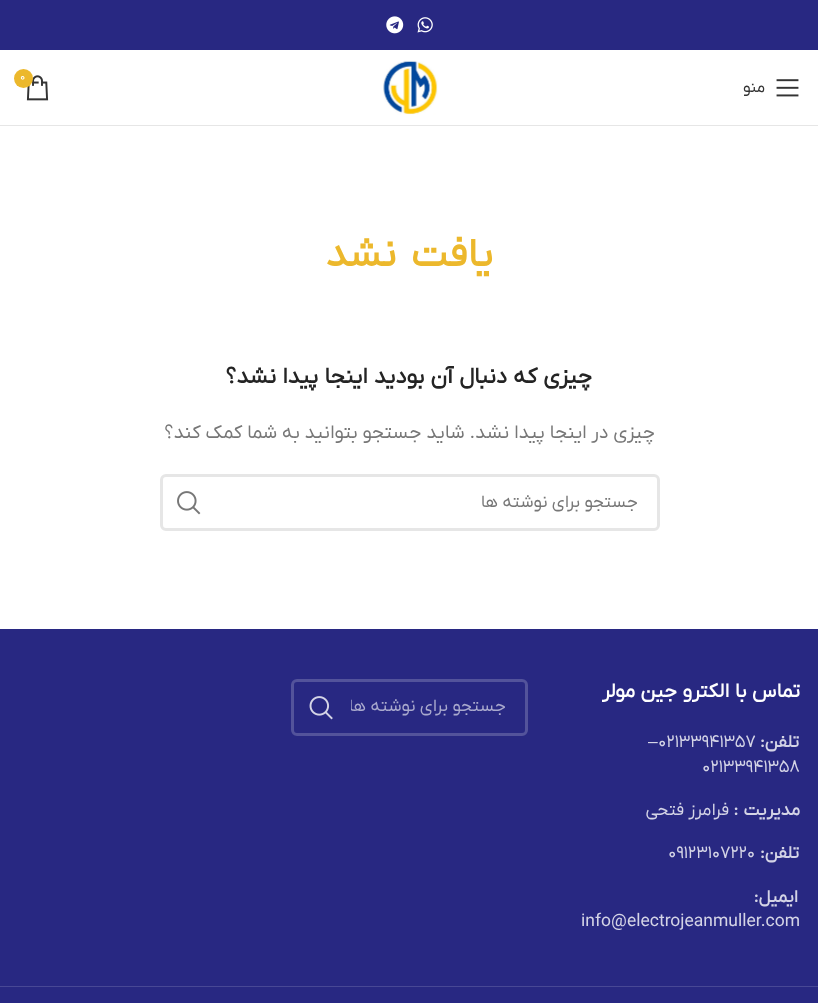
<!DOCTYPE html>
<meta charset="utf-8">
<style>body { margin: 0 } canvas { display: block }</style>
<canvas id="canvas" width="818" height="1003"></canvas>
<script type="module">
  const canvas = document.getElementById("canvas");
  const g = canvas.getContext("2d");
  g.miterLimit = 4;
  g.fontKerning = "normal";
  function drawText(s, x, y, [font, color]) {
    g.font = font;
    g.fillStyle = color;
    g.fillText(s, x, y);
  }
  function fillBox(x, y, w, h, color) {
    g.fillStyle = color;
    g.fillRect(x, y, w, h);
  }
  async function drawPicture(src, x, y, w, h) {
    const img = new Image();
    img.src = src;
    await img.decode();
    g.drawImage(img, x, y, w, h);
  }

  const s1 = ["11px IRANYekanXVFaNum", "#FFFFFF"];
  const s2 = ["16px IRANYekanXVFaNum", "#333333"];
  const s3 = ["bold 40px IRANYekanXVFaNum", "#ECB82C"];
  const s4 = ["bold 22.5px IRANYekanXVFaNum", "#242424"];
  const s5 = ["19.25px IRANYekanXVFaNum", "#777777"];
  const s6 = ["17.5px IRANYekanXVFaNum", "#777777"];
  const s7 = ["bold 20px IRANYekanXVFaNum", "#FFFFFF"];
  const s8 = ["bold 17.5px IRANYekanXVFaNum", "#D4D4E6"];
  const s9 = ["17.5px IRANYekanXVFaNum", "#D4D4E6"];
  const s10 = ["17.5px Liberation Sans", "#D4D4E6"];
  const s11 = ["17.5px IRANYekanXVFaNum", "#A9A9CD"];

  fillBox(0, 0, 818, 1003, "#FFFFFF");
  fillBox(0, 0, 818, 50, "#282882");
  await drawPicture("pic1.png", 417, 17, 16, 16);
  await drawPicture("pic2.png", 386, 16, 18, 18);
  fillBox(0, 125, 818, 1, "#E6E6E6");
  await drawPicture("pic3.png", 383, 60, 55, 55);
  await drawPicture("pic4.png", 26, 75, 23, 26);
  g.fillStyle = "#ECB82C";
  g.beginPath();
  g.arc(23.5, 78.5, 9.5, 0, Math.PI * 2);
  g.fill();
  drawText("0", 20, 80, s1);
  await drawPicture("pic5.png", 776, 79, 23, 18);
  g.direction = "rtl";
  drawText("منو", 765, 92, s2);
  g.wordSpacing = "5px";
  drawText("یافت نشد", 493, 266, s3);
  g.wordSpacing = "0.5px";
  drawText("چیزی که دنبال آن بودید اینجا پیدا نشد؟", 592, 383, s4);
  g.wordSpacing = "0px";
  drawText("چیزی در اینجا پیدا نشد. شاید جستجو بتوانید به شما کمک کند؟", 655, 438, s5);
  g.beginPath();
  g.roundRect(161.5, 475.5, 497, 54, 4.5);
  g.strokeStyle = "#E6E6E6";
  g.lineWidth = 3;
  g.stroke();
  drawText("جستجو برای نوشته ها", 638, 507, s6);
  await drawPicture("pic6.png", 177, 491, 24, 24);
  fillBox(0, 629, 818, 374, "#282882");
  g.wordSpacing = "0.5px";
  drawText("تماس با الکترو جین مولر", 800, 697, s7);
  g.wordSpacing = "0px";
  drawText("تلفن:", 799, 747, s8);
  g.direction = "ltr";
  drawText("02133941357", 658, 747, s9);
  drawText("–", 648, 747, s10);
  drawText("02133941358", 702, 772, s9);
  g.wordSpacing = "1px";
  g.direction = "rtl";
  drawText("مدیریت :", 800, 815, s8);
  g.wordSpacing = "0px";
  drawText("فرامرز فتحی", 729, 815, s9);
  drawText("تلفن:", 799, 858, s8);
  g.direction = "ltr";
  drawText("09123107220", 668, 858, s9);
  g.direction = "rtl";
  drawText("ایمیل:", 798, 902, s8);
  g.direction = "ltr";
  drawText("info@electrojeanmuller.com", 581, 926, s9);
  g.beginPath();
  g.roundRect(292.5, 680.5, 234, 54, 4.5);
  g.strokeStyle = "#53539B";
  g.stroke();
  g.save();
  g.beginPath();
  g.rect(351, 695, 155, 24);
  g.clip();
  g.direction = "rtl";
  drawText("جستجو برای نوشته ها", 506, 711, s11);
  g.restore();
  await drawPicture("pic7.png", 309, 696, 24, 24);
  fillBox(0, 986, 818, 1, "#484895");
</script>
